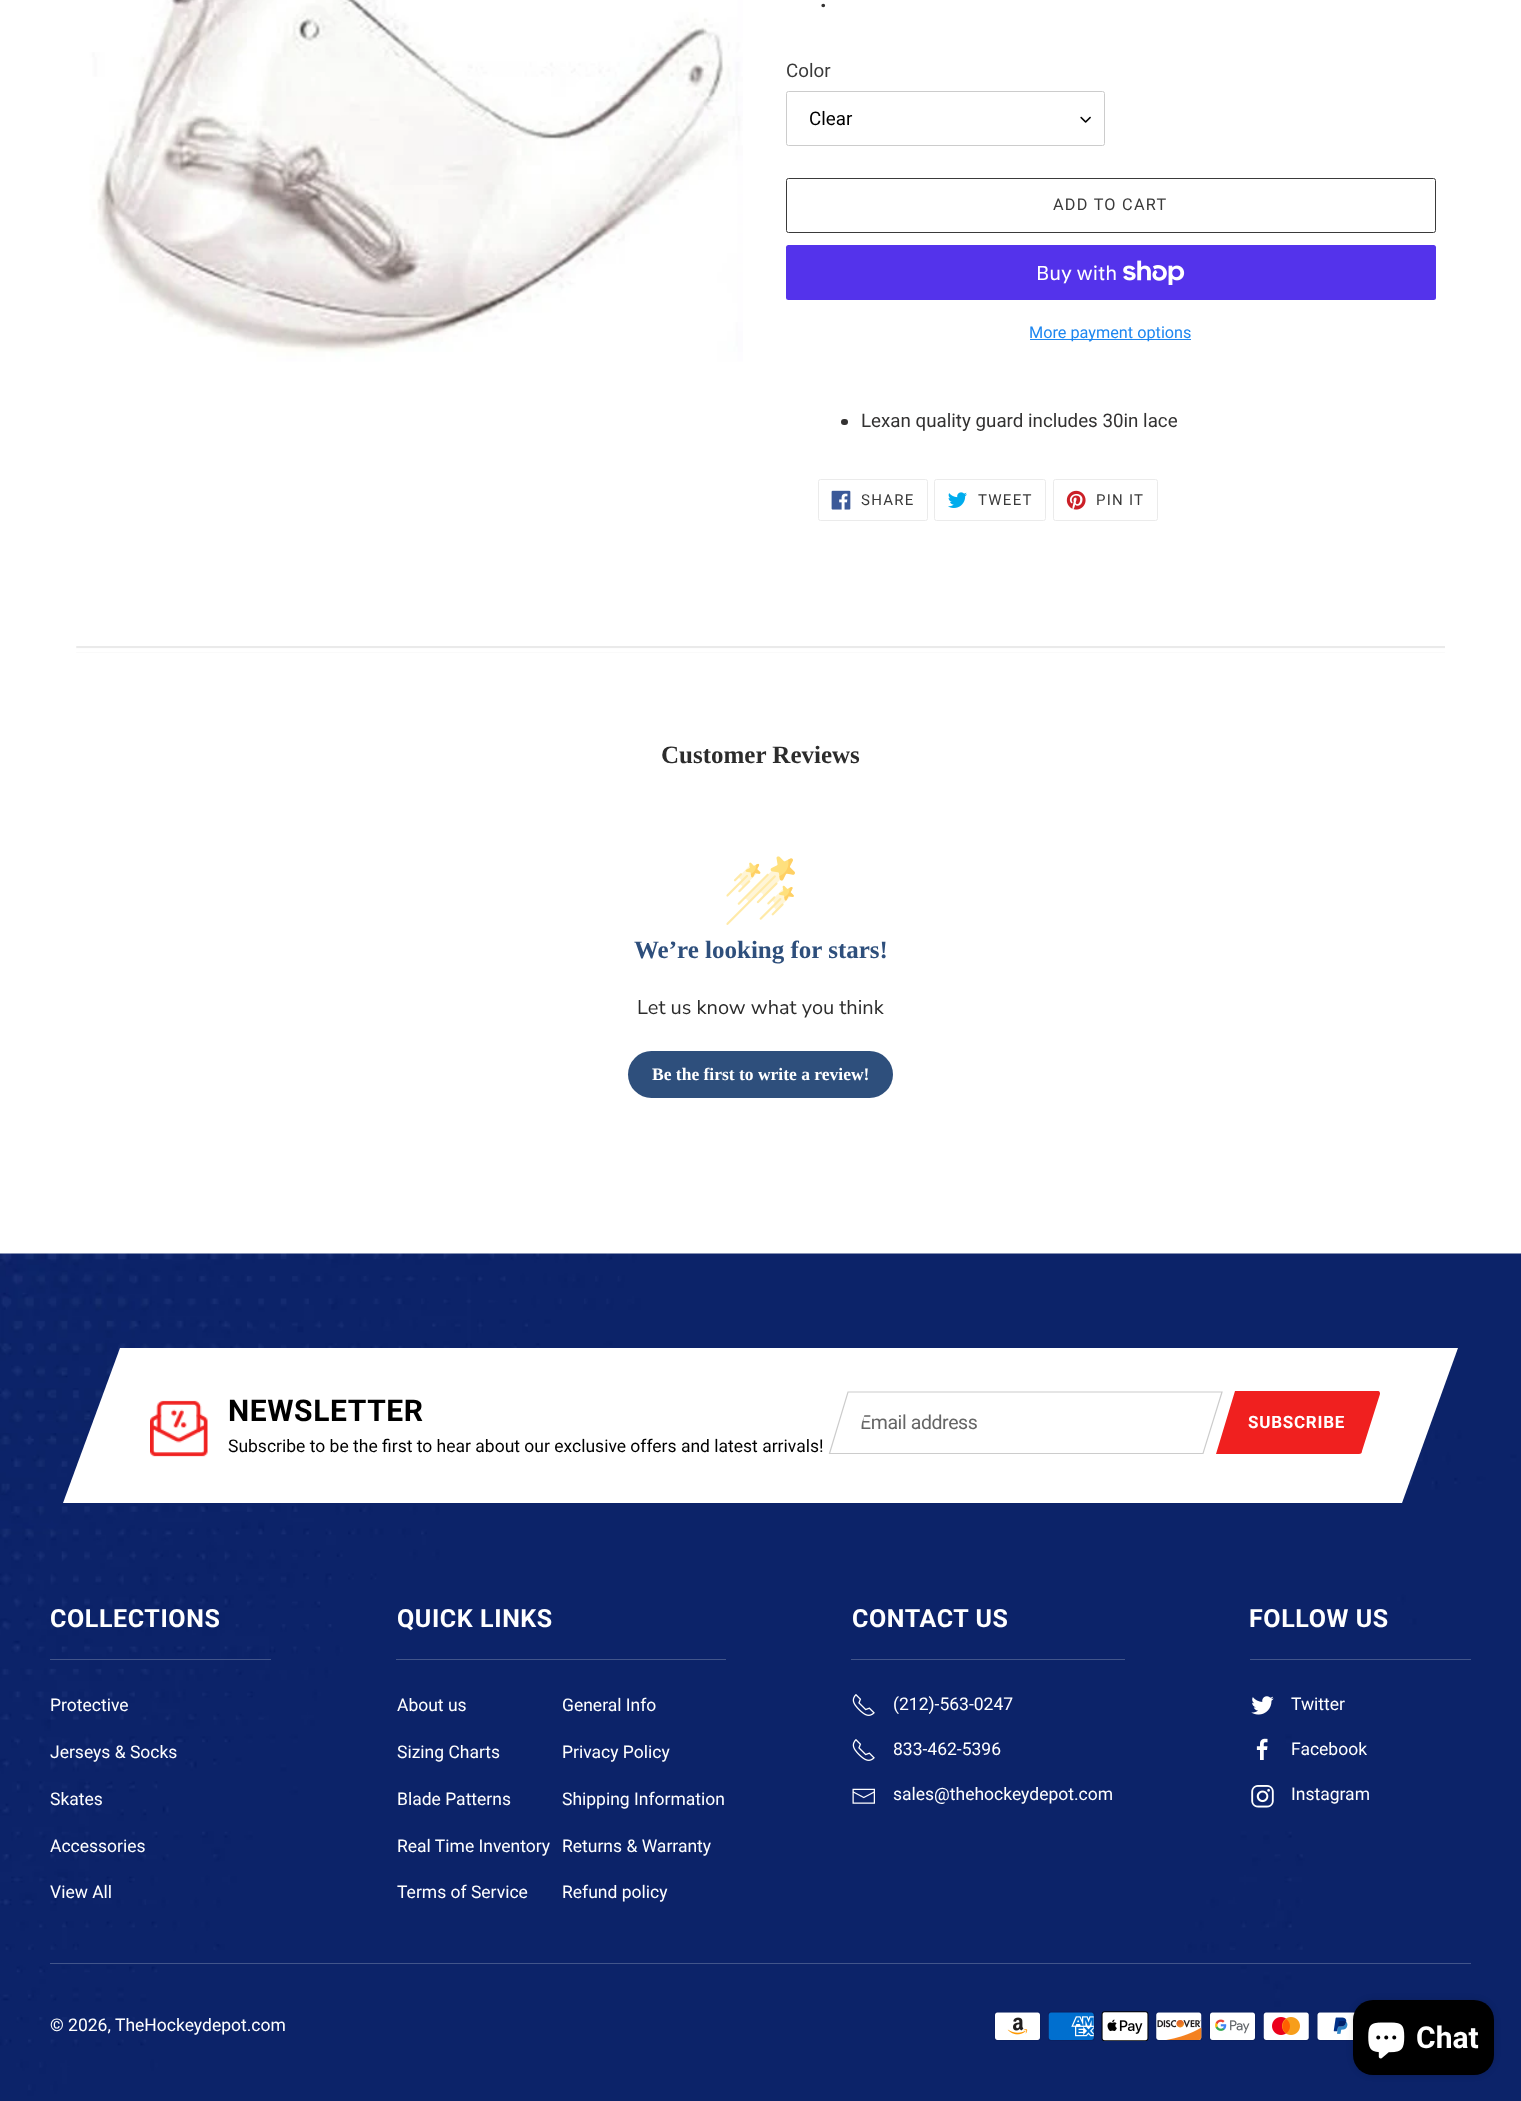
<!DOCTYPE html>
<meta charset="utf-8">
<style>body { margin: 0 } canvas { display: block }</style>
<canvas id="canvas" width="1521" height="2101"></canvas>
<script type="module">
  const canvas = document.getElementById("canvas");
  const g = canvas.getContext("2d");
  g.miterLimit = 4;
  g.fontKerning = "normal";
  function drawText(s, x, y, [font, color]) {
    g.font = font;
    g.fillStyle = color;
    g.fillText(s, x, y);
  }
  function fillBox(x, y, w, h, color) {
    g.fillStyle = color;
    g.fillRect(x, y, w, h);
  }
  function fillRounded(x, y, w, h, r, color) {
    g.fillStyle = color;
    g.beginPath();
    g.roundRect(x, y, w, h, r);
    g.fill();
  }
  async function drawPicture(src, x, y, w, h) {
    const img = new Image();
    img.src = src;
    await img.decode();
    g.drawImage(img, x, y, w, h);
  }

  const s1 = ["bold 23px Roboto", "#333232"];
  const s2 = ["18.75px Roboto", "#3A3A3A"];
  const s3 = ["18.75px Roboto", "#000000"];
  const s4 = ["16.25px Roboto", "#3A3A3A"];
  const s5 = ["20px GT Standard", "#FFFFFF"];
  const s6 = ["16.25px Roboto", "#1E87F0"];
  const s7 = ["18.75px Roboto", "#333232"];
  const s8 = ["15px Roboto", "#3A3A3A"];
  const s9 = ["bold 25px Liberation Serif", "#2C2C2C"];
  const s10 = ["bold 25px Liberation Serif", "#2E4F7C"];
  const s11 = ["200 20px Nunito Sans", "#2C2C2C"];
  const s12 = ["bold 17.5px Liberation Serif", "#FFFFFF"];
  const s13 = ["bold 30px Roboto", "#000000"];
  const s14 = ["17.5px Roboto", "#000000"];
  const s15 = ["19.5px Roboto", "#666666"];
  const s16 = ["bold 17px Roboto", "#FFFFFF"];
  const s17 = ["bold 25px Roboto", "#FFFFFF"];
  const s18 = ["17.5px Roboto", "#FFFFFF"];
  const s19 = ["bold 30px Roboto", "#FFFFFF"];

  fillBox(0, 0, 1521, 2101, "#FFFFFF");
  await drawPicture("pic1.png", 80, 0, 663, 445);
  drawText(".", 820, 7, s1);
  drawText("Color", 786, 77, s2);
  await drawPicture("pic2.png", 1080, 116, 11, 7);
  g.beginPath();
  g.roundRect(786.5, 91.5, 318, 54, 2);
  g.strokeStyle = "#CCCCCC";
  g.stroke();
  drawText("Clear", 809, 125, s3);
  g.beginPath();
  g.roundRect(786.5, 178.5, 649, 54, 2);
  g.strokeStyle = "#3A3A3A";
  g.stroke();
  g.letterSpacing = "1.25px";
  drawText("ADD TO CART", 1053, 210, s4);
  fillRounded(786, 245, 650, 55, 2.5, "#5433EB");
  g.letterSpacing = "0px";
  drawText("Buy with", 1036, 280, s5);
  await drawPicture("pic3.png", 1123, 260, 62, 25);
  fillBox(1030, 339, 161, 1, "#1E87F0");
  drawText("More payment options", 1029, 338, s6);
  fillRounded(841, 419, 7, 6, 3, "#333232");
  drawText("Lexan quality guard includes 30in lace", 861, 427, s7);
  g.beginPath();
  g.roundRect(818.5, 479.5, 109, 41, 2);
  g.strokeStyle = "#EBEBEB";
  g.stroke();
  await drawPicture("pic4.png", 831, 490, 20, 20);
  g.letterSpacing = "1.25px";
  drawText("SHARE", 861, 505, s8);
  g.beginPath();
  g.roundRect(934.5, 479.5, 111, 41, 2);
  g.stroke();
  await drawPicture("pic5.png", 948, 492, 19, 16);
  drawText("TWEET", 978, 505, s8);
  g.beginPath();
  g.roundRect(1053.5, 479.5, 104, 41, 2);
  g.stroke();
  await drawPicture("pic6.png", 1066, 490, 20, 20);
  drawText("PIN IT", 1096, 505, s8);
  await drawPicture("pic7.png", 76, 646, 1369, 7);
  g.letterSpacing = "0px";
  drawText("Customer Reviews", 661, 763, s9);
  await drawPicture("pic8.png", 726, 856, 69, 69);
  drawText("We’re looking for stars!", 634, 958, s10);
  drawText("Let us know what you think", 637, 1014, s11);
  fillRounded(628, 1051, 265, 47, 23.5, "#2E4F7C");
  drawText("Be the first to write a review!", 652, 1080, s12);
  await drawPicture("pic9.png", 0, 1253, 1521, 848);
  g.beginPath();
  g.moveTo(120, 1348);
  g.lineTo(1458, 1348);
  g.lineTo(1402, 1503);
  g.lineTo(63, 1503);
  g.closePath();
  g.fill();
  await drawPicture("pic10.png", 150, 1400, 58, 57);
  g.letterSpacing = "0.6px";
  drawText("NEWSLETTER", 228, 1421, s13);
  g.letterSpacing = "0px";
  drawText("Subscribe to be the first to hear about our exclusive offers and latest arrivals!", 228, 1452, s14);
  g.beginPath();
  g.moveTo(848, 1392);
  g.lineTo(1222, 1392);
  g.lineTo(1203, 1453.5);
  g.lineTo(829.5, 1453.5);
  g.closePath();
  g.strokeStyle = "#CCCCCC";
  g.lineWidth = 1.2;
  g.stroke();
  g.save();
  g.beginPath();
  g.moveTo(865.5, 1411.5);
  g.lineTo(1193, 1411.5);
  g.lineTo(1186, 1434);
  g.lineTo(858.5, 1434);
  g.closePath();
  g.clip();
  g.letterSpacing = "-0.4px";
  drawText("Email address", 860, 1429, s15);
  g.restore();
  g.fillStyle = "#F0201F";
  g.beginPath();
  g.moveTo(1235, 1391);
  g.lineTo(1378, 1391);
  g.bezierCurveTo(1380, 1391, 1380, 1393, 1380, 1394);
  g.lineTo(1362, 1451);
  g.bezierCurveTo(1362, 1453, 1361, 1454, 1359, 1454);
  g.lineTo(1216, 1454);
  g.closePath();
  g.fill();
  g.letterSpacing = "0.75px";
  drawText("SUBSCRIBE", 1248, 1428, s16);
  fillBox(50, 1963, 1421, 1, "#42558A");
  fillBox(50, 1659, 221, 1, "#42558A");
  g.letterSpacing = "0.6px";
  drawText("COLLECTIONS", 50, 1627, s17);
  g.letterSpacing = "0px";
  drawText("Protective", 50, 1711, s18);
  drawText("Jerseys & Socks", 50, 1758, s18);
  drawText("Skates", 50, 1805, s18);
  drawText("Accessories", 50, 1852, s18);
  drawText("View All", 50, 1898, s18);
  fillBox(396, 1659, 330, 1, "#42558A");
  g.letterSpacing = "0.6px";
  drawText("QUICK LINKS", 397, 1627, s17);
  g.letterSpacing = "0px";
  drawText("About us", 397, 1711, s18);
  drawText("General Info", 562, 1711, s18);
  drawText("Sizing Charts", 397, 1758, s18);
  drawText("Privacy Policy", 562, 1758, s18);
  drawText("Blade Patterns", 397, 1805, s18);
  drawText("Shipping Information", 562, 1805, s18);
  drawText("Real Time Inventory", 397, 1852, s18);
  drawText("Returns & Warranty", 562, 1852, s18);
  drawText("Terms of Service", 397, 1898, s18);
  drawText("Refund policy", 562, 1898, s18);
  fillBox(851, 1659, 274, 1, "#42558A");
  g.letterSpacing = "0.6px";
  drawText("CONTACT US", 852, 1627, s17);
  await drawPicture("pic11.png", 852, 1694, 23, 22);
  g.letterSpacing = "0px";
  drawText("(212)-563-0247", 893, 1710, s18);
  await drawPicture("pic11.png", 852, 1739, 23, 22);
  drawText("833-462-5396", 893, 1755, s18);
  await drawPicture("pic12.png", 852, 1788, 23, 16);
  drawText("sales@thehockeydepot.com", 893, 1800, s18);
  fillBox(1250, 1659, 221, 1, "#42558A");
  g.letterSpacing = "0.6px";
  drawText("FOLLOW US", 1249, 1627, s17);
  await drawPicture("pic13.png", 1251, 1696, 23, 19);
  g.letterSpacing = "0px";
  drawText("Twitter", 1291, 1710, s18);
  await drawPicture("pic14.png", 1256, 1738, 12, 22);
  drawText("Facebook", 1291, 1755, s18);
  await drawPicture("pic15.png", 1251, 1785, 23, 23);
  drawText("Instagram", 1291, 1800, s18);
  drawText("© 2026,", 50, 2031, s18);
  drawText("TheHockeydepot.com", 115, 2031, s18);
  await drawPicture("pic16.png", 994, 2011, 47, 30);
  await drawPicture("pic17.png", 1048, 2011, 47, 30);
  await drawPicture("pic18.png", 1101, 2011, 48, 30);
  await drawPicture("pic19.png", 1155, 2011, 47, 30);
  await drawPicture("pic20.png", 1209, 2011, 47, 30);
  await drawPicture("pic21.png", 1263, 2011, 47, 30);
  await drawPicture("pic22.png", 1316, 2011, 40, 30);
  g.fillStyle = "rgba(0, 0, 0, 0.15)";
  g.filter = "blur(3px)";
  g.beginPath();
  g.roundRect(1353, 2000, 141, 75, 20);
  g.fill();
  g.filter = "none";
  fillRounded(1353, 2000, 141, 75, 20, "#000000");
  await drawPicture("pic23.png", 1368, 2022, 37, 37);
  drawText("Chat", 1416, 2048, s19);
</script>
